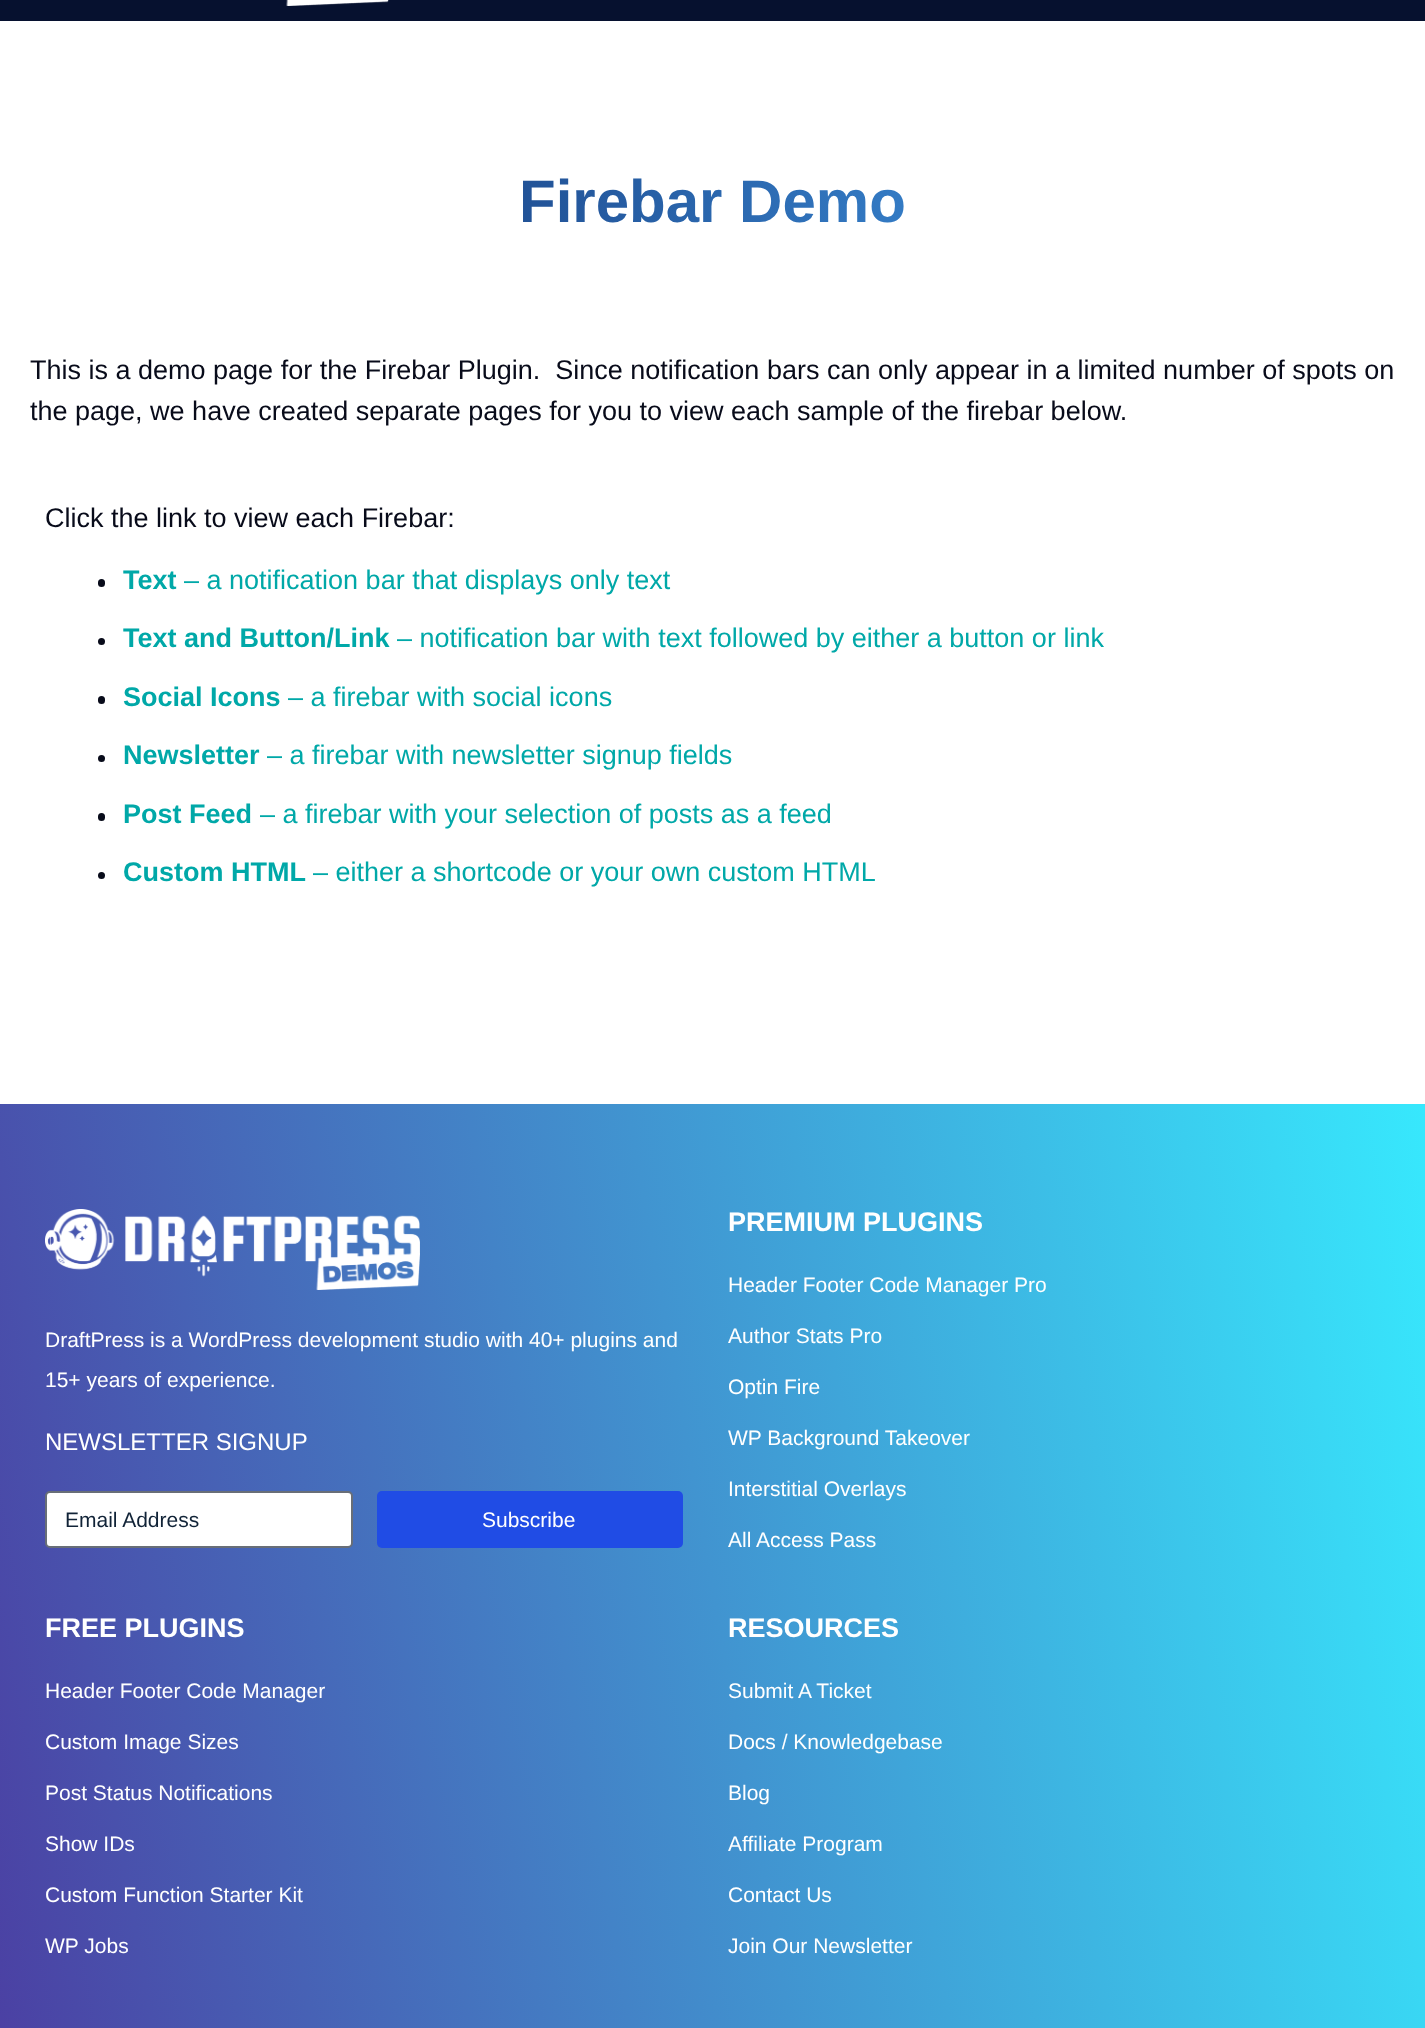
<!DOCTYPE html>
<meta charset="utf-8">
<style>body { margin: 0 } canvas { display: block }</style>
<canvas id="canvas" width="1425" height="2028"></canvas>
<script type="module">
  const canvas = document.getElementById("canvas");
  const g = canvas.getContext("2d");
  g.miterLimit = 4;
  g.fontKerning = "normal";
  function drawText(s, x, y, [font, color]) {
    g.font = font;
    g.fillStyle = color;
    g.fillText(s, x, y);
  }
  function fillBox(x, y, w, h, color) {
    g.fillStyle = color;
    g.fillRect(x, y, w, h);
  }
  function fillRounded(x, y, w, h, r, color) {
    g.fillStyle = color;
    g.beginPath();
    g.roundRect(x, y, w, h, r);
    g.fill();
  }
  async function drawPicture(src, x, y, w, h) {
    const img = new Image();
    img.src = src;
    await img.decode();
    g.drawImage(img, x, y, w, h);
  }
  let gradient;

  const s1 = ["27px Liberation Sans", "#080B1A"];
  const s2 = ["bold 27px Liberation Sans", "#00A8A8"];
  const s3 = ["27px Liberation Sans", "#00A8A8"];
  const s4 = ["21px Liberation Sans", "#FFFFFF"];
  const s5 = ["24px Liberation Sans", "#FFFFFF"];
  const s6 = ["21px Liberation Sans", "#112337"];
  const s7 = ["bold 27px Liberation Sans", "#FFFFFF"];

  fillBox(0, 0, 1425, 2028, "#FFFFFF");
  fillBox(0, 0, 1425, 21, "#06112F");
  await drawPicture("pic1.png", 286, 0, 103, 6);
  g.font = "bold 60px Liberation Sans";
  gradient = g.createLinearGradient(15, 201, 1410, 201);
  gradient.addColorStop(0, "#0B1E5C");
  gradient.addColorStop(1, "#4AAFFF");
  g.fillStyle = gradient;
  g.fillText("Firebar Demo", 519, 222);
  drawText("This is a demo page for the Firebar Plugin.  Since notification bars can only appear in a limited number of spots on", 30, 379, s1);
  drawText("the page, we have created separate pages for you to view each sample of the firebar below.", 30, 420, s1);
  drawText("Click the link to view each Firebar:", 45, 527, s1);
  fillRounded(98, 579, 7, 8, 3.5, "#080B1A");
  drawText("Text", 123, 589, s2);
  drawText("– a notification bar that displays only text", 184, 589, s3);
  g.fillStyle = "#080B1A";
  g.beginPath();
  g.arc(101.5, 641.5, 3.5, 0, Math.PI * 2);
  g.fill();
  drawText("Text and Button/Link", 123, 647, s2);
  drawText("– notification bar with text followed by either a button or link", 397, 647, s3);
  fillRounded(98, 696, 7, 8, 3.5, "#080B1A");
  drawText("Social Icons", 123, 706, s2);
  drawText("– a firebar with social icons", 288, 706, s3);
  g.fillStyle = "#080B1A";
  g.beginPath();
  g.arc(101.5, 758.5, 3.5, 0, Math.PI * 2);
  g.fill();
  drawText("Newsletter", 123, 764, s2);
  drawText("– a firebar with newsletter signup fields", 267, 764, s3);
  fillRounded(98, 813, 7, 8, 3.5, "#080B1A");
  drawText("Post Feed", 123, 823, s2);
  drawText("– a firebar with your selection of posts as a feed", 260, 823, s3);
  g.fillStyle = "#080B1A";
  g.beginPath();
  g.arc(101.5, 875.5, 3.5, 0, Math.PI * 2);
  g.fill();
  drawText("Custom HTML", 123, 881, s2);
  drawText("– either a shortcode or your own custom HTML", 313, 881, s3);
  gradient = g.createLinearGradient(-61, 1724, 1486, 1451);
  gradient.addColorStop(0, "#4B40A3");
  gradient.addColorStop(1, "#37E8FD");
  g.fillStyle = gradient;
  g.fillRect(0, 1104, 1425, 924);
  await drawPicture("pic2.png", 45, 1209, 375, 81);
  drawText("DraftPress is a WordPress development studio with 40+ plugins and", 45, 1347, s4);
  drawText("15+ years of experience.", 45, 1387, s4);
  drawText("NEWSLETTER SIGNUP", 45, 1450, s5);
  g.beginPath();
  g.roundRect(46, 1492, 306, 55, 4);
  g.fill();
  g.strokeStyle = "#686E77";
  g.lineWidth = 2;
  g.stroke();
  drawText("Email Address", 65, 1527, s6);
  fillRounded(377, 1491, 306, 57, 5, "#204CE5");
  drawText("Subscribe", 482, 1527, s4);
  drawText("PREMIUM PLUGINS", 728, 1231, s7);
  drawText("Header Footer Code Manager Pro", 728, 1292, s4);
  drawText("Author Stats Pro", 728, 1343, s4);
  drawText("Optin Fire", 728, 1394, s4);
  drawText("WP Background Takeover", 728, 1445, s4);
  drawText("Interstitial Overlays", 728, 1496, s4);
  drawText("All Access Pass", 728, 1547, s4);
  drawText("FREE PLUGINS", 45, 1637, s7);
  drawText("Header Footer Code Manager", 45, 1698, s4);
  drawText("Custom Image Sizes", 45, 1749, s4);
  drawText("Post Status Notifications", 45, 1800, s4);
  drawText("Show IDs", 45, 1851, s4);
  drawText("Custom Function Starter Kit", 45, 1902, s4);
  drawText("WP Jobs", 45, 1953, s4);
  drawText("RESOURCES", 728, 1637, s7);
  drawText("Submit A Ticket", 728, 1698, s4);
  drawText("Docs / Knowledgebase", 728, 1749, s4);
  drawText("Blog", 728, 1800, s4);
  drawText("Affiliate Program", 728, 1851, s4);
  drawText("Contact Us", 728, 1902, s4);
  drawText("Join Our Newsletter", 728, 1953, s4);
</script>
